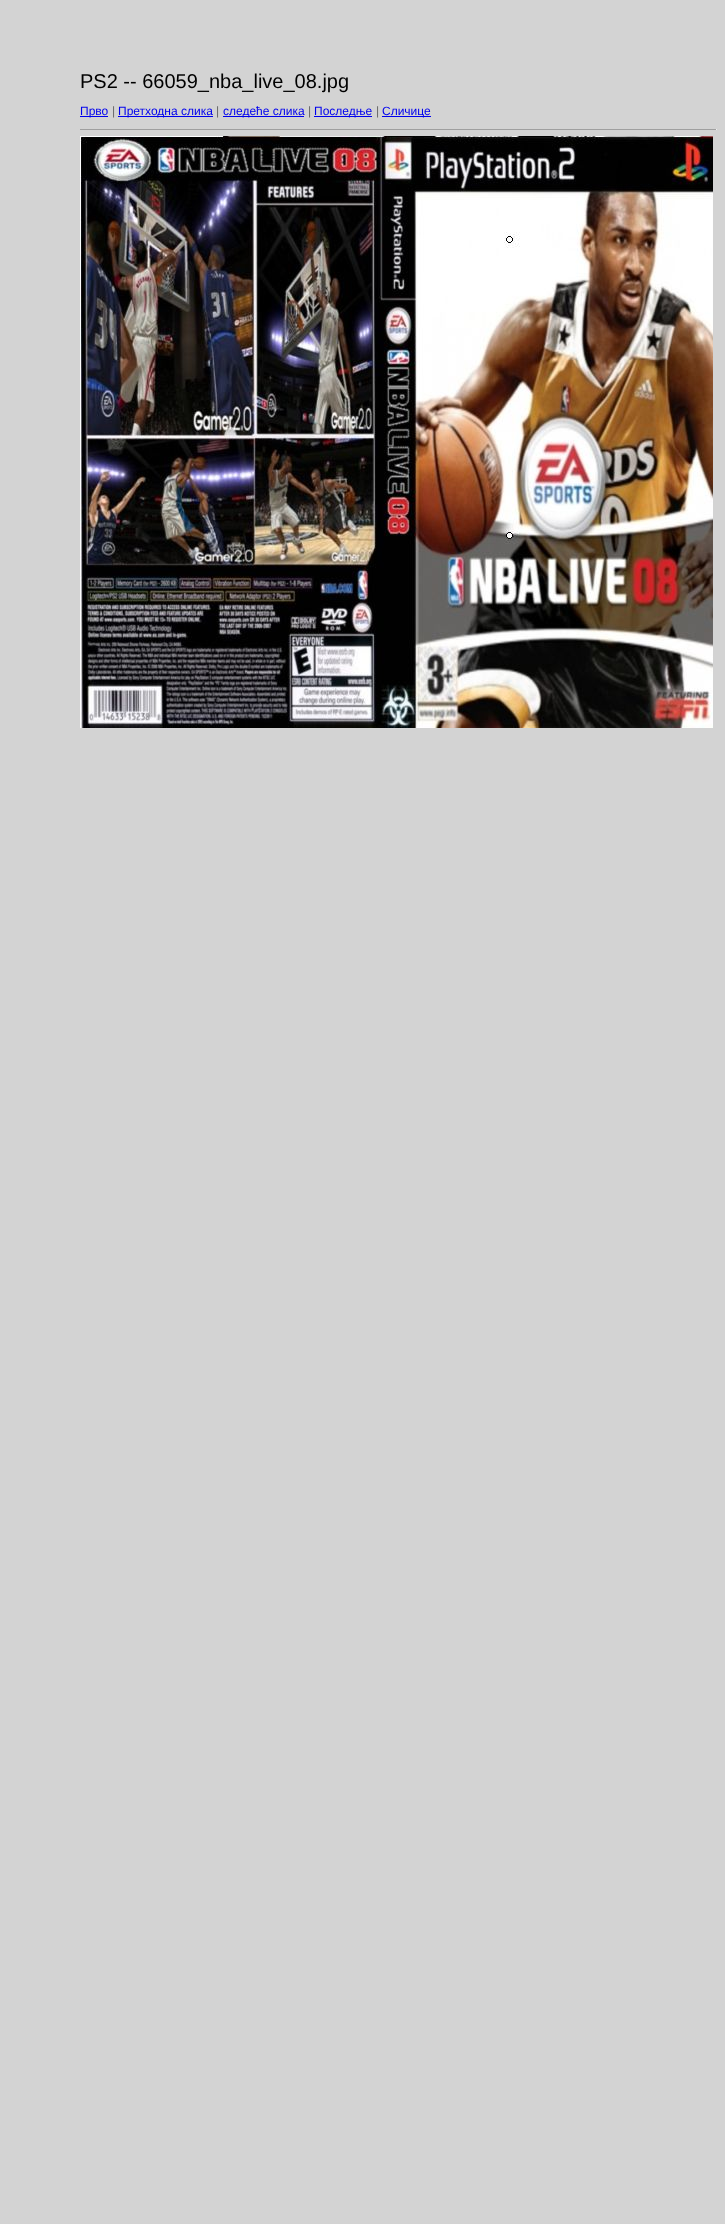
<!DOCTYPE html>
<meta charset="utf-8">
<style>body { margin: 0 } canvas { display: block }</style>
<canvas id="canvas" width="725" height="2224"></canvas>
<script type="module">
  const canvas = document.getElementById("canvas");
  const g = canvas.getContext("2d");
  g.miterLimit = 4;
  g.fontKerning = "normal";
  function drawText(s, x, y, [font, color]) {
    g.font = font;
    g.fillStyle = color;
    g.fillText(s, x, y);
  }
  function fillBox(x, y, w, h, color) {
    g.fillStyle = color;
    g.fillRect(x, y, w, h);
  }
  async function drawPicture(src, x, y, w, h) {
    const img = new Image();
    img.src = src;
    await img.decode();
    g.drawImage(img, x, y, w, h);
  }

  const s1 = ["20px Liberation Sans", "#000000"];
  const s2 = ["12px Liberation Sans", "#0000EE"];
  const s3 = ["12px Liberation Sans", "#666666"];

  fillBox(0, 0, 725, 2224, "#D3D3D3");
  drawText("PS2 -- 66059_nba_live_08.jpg", 80, 88, s1);
  fillBox(80, 116, 28, 1, "#0000EE");
  drawText("Прво", 80, 115, s2);
  drawText("|", 112, 115, s3);
  fillBox(118, 116, 95, 1, "#0000EE");
  drawText("Претходна слика", 118, 115, s2);
  drawText("|", 216, 115, s3);
  fillBox(223, 116, 81, 1, "#0000EE");
  drawText("следеће слика", 223, 115, s2);
  drawText("|", 308, 115, s3);
  fillBox(314, 116, 58, 1, "#0000EE");
  drawText("Последње", 314, 115, s2);
  drawText("|", 376, 115, s3);
  fillBox(382, 116, 49, 1, "#0000EE");
  drawText("Сличице", 382, 115, s2);
  fillBox(80, 129, 637, 1, "#9F9F9F");
  fillBox(716, 129, 1, 1, "#EEEEEE");
  await drawPicture("pic1.png", 80, 136, 633, 592);
</script>
